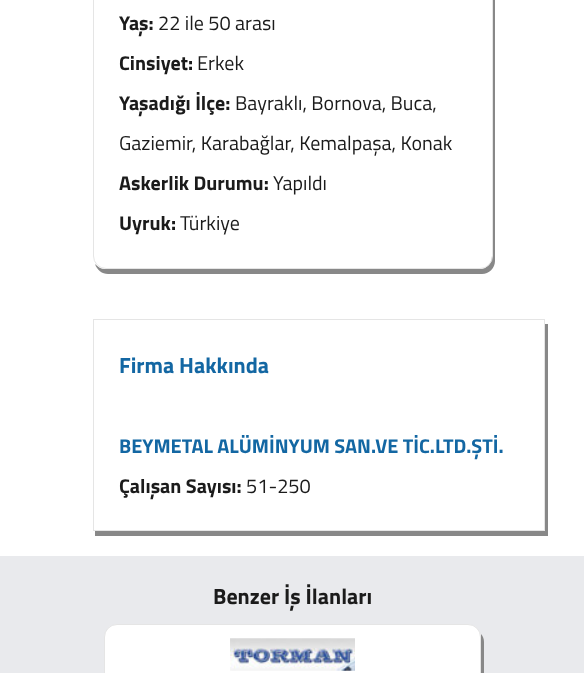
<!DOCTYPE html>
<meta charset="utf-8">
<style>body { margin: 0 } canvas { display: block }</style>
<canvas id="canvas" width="584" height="673"></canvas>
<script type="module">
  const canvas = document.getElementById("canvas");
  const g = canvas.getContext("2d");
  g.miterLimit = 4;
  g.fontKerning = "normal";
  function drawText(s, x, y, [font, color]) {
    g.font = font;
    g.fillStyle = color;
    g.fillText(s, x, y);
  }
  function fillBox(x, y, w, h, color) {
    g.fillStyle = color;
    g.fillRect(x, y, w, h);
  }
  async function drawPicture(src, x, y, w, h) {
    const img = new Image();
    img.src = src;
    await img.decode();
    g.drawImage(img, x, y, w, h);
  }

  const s1 = ["bold 20px Titillium Web", "#1B1B1B"];
  const s2 = ["20px Titillium Web", "#1B1B1B"];
  const s3 = ["bold 22px Titillium Web", "#1367A3"];
  const s4 = ["bold 20px Titillium Web", "#1367A3"];
  const s5 = ["bold 22px Titillium Web", "#1B1B1B"];

  fillBox(0, 0, 584, 673, "#FFFFFF");
  g.fillStyle = "#888888";
  g.beginPath();
  g.moveTo(95, 264);
  g.bezierCurveTo(97, 270, 102, 274, 108, 274);
  g.lineTo(482, 274);
  g.bezierCurveTo(489, 274, 495, 268, 495, 261);
  g.lineTo(495, -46);
  g.bezierCurveTo(495, -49, 494, -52, 492, -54);
  g.lineTo(492, 256);
  g.bezierCurveTo(492, 263, 487, 269, 480, 269);
  g.lineTo(105, 269);
  g.bezierCurveTo(101, 269, 98, 267, 95, 264);
  g.closePath();
  g.fill();
  g.beginPath();
  g.roundRect(93.5, -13.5, 399, 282, 12.5);
  g.strokeStyle = "#E5E5E5";
  g.stroke();
  drawText("Yaş:", 119, 30, s1);
  drawText("22 ile 50 arası", 158, 30, s2);
  drawText("Cinsiyet:", 119, 70, s1);
  drawText("Erkek", 197, 70, s2);
  drawText("Yaşadığı İlçe:", 119, 110, s1);
  drawText("Bayraklı, Bornova, Buca,", 235, 110, s2);
  drawText("Gaziemir, Karabağlar, Kemalpaşa, Konak", 119, 150, s2);
  drawText("Askerlik Durumu:", 119, 190, s1);
  drawText("Yapıldı", 273, 190, s2);
  drawText("Uyruk:", 119, 230, s1);
  drawText("Türkiye", 180, 230, s2);
  g.fillStyle = "#888888";
  g.beginPath();
  g.moveTo(95, 531);
  g.lineTo(95, 536);
  g.lineTo(548, 536);
  g.lineTo(548, 324);
  g.lineTo(545, 324);
  g.lineTo(545, 531);
  g.closePath();
  g.fill();
  g.strokeRect(93.5, 319.5, 451, 211);
  drawText("Firma Hakkında", 119, 373, s3);
  drawText("BEYMETAL ALÜMİNYUM SAN.VE TİC.LTD.ŞTİ.", 119, 453, s4);
  drawText("Çalışan Sayısı:", 119, 493, s1);
  drawText("51-250", 246, 493, s2);
  fillBox(0, 556, 584, 117, "#E9EAED");
  drawText("Benzer İş İlanları", 213, 604, s5);
  g.fillStyle = "#888888";
  g.beginPath();
  g.moveTo(106, 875);
  g.bezierCurveTo(108, 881, 113, 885, 119, 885);
  g.lineTo(471, 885);
  g.bezierCurveTo(478, 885, 484, 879, 484, 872);
  g.lineTo(484, 642);
  g.bezierCurveTo(484, 639, 483, 636, 481, 634);
  g.lineTo(481, 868);
  g.bezierCurveTo(481, 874, 476, 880, 469, 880);
  g.lineTo(116, 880);
  g.bezierCurveTo(112, 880, 109, 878, 106, 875);
  g.closePath();
  g.fill();
  g.fillStyle = "#FFFFFF";
  g.beginPath();
  g.roundRect(104.5, 624.5, 376, 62, 12.5);
  g.fill();
  g.stroke();
  await drawPicture("pic1.png", 230, 638, 125, 33);
</script>
